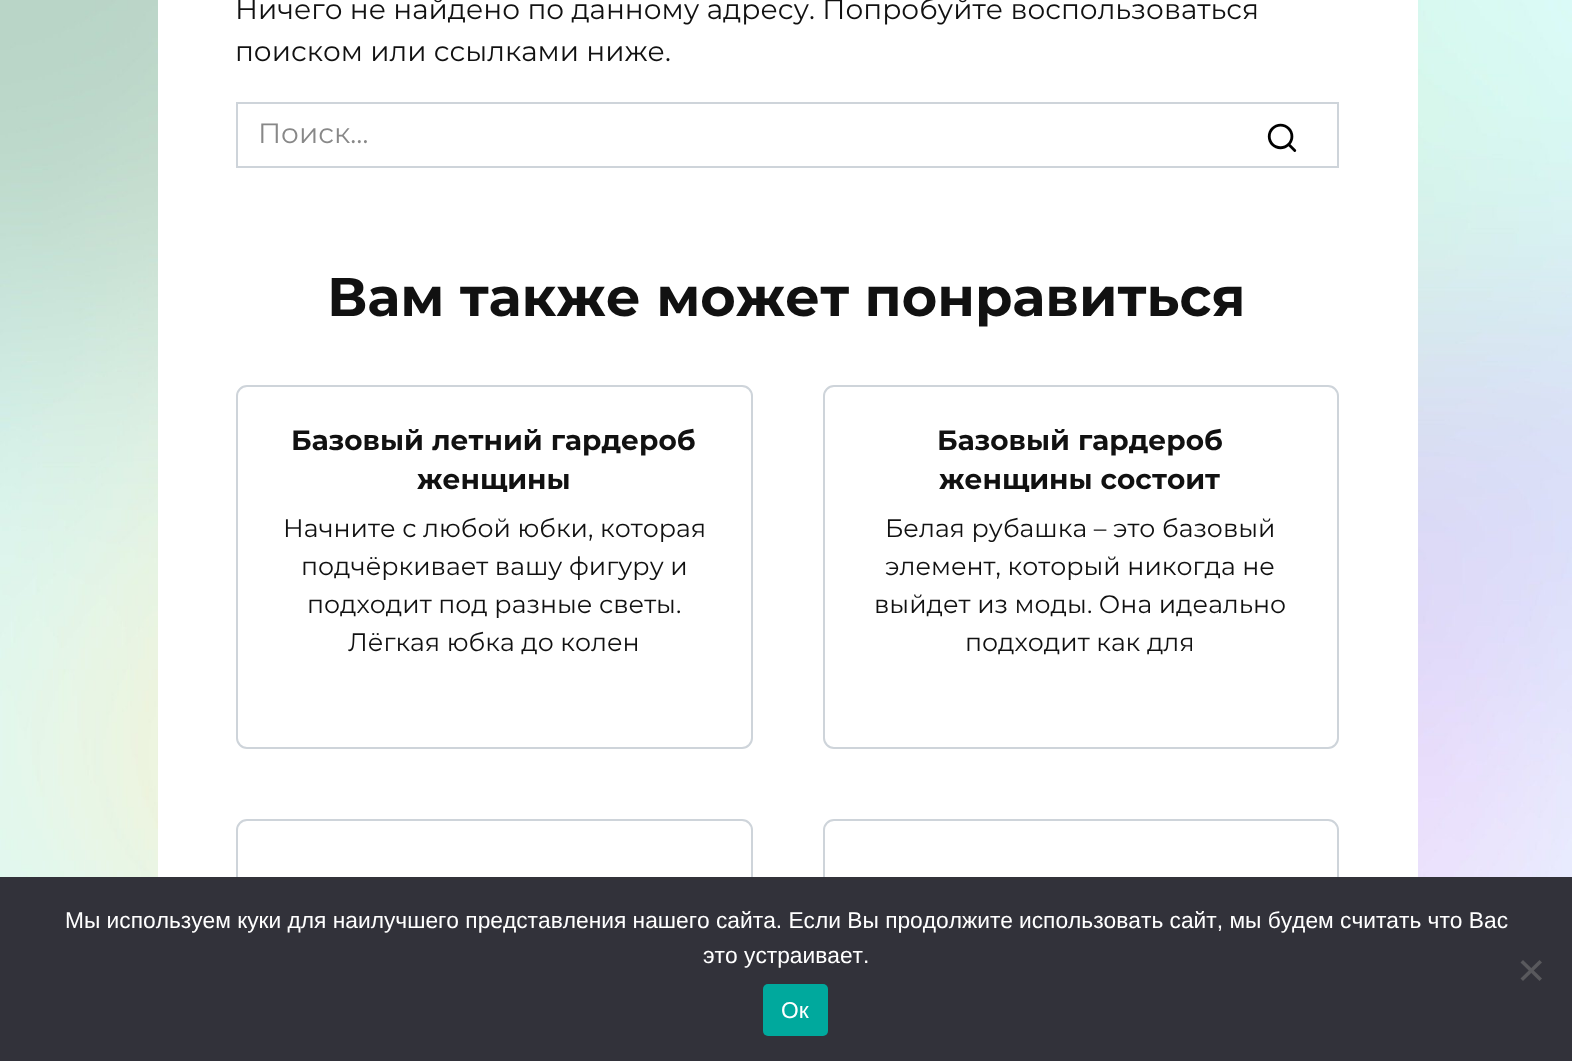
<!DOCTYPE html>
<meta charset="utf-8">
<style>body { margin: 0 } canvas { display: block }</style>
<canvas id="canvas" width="1572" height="1061"></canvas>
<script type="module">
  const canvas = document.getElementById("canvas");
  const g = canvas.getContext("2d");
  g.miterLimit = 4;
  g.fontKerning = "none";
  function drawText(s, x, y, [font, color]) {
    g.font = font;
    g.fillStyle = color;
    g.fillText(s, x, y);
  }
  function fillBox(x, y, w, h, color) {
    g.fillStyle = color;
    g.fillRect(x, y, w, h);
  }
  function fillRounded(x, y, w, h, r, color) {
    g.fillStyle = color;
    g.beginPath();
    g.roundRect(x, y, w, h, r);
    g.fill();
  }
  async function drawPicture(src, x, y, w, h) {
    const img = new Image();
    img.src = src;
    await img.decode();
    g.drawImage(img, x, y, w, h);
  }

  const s1 = ["28px Montserrat", "#111111"];
  const s2 = ["28px Montserrat", "#888888"];
  const s3 = ["34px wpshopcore", "#000000"];
  const s4 = ["bold 54.25px Montserrat", "#111111"];
  const s5 = ["bold 28px Montserrat", "#111111"];
  const s6 = ["25.25px Montserrat", "#111111"];
  const s7 = ["22.75px Liberation Sans", "#FFFFFF"];

  fillBox(0, 0, 1572, 1061, "#FFFFFF");
  await drawPicture("pic1.png", 0, 0, 1572, 877);
  fillBox(158, 0, 1260, 877, "#FFFFFF");
  drawText("Ничего не найдено по данному адресу. Попробуйте воспользоваться", 235, 19, s1);
  drawText("поиском или ссылками ниже.", 235, 61, s1);
  g.strokeStyle = "#CED4DA";
  g.lineWidth = 2;
  g.strokeRect(237, 103, 1101, 64);
  drawText("Поиск…", 258, 143, s2);
  drawText("🔍", 1265, 152, s3);
  drawText("Вам также может понравиться", 327, 316, s4);
  g.beginPath();
  g.roundRect(237, 386, 515, 362, 10);
  g.stroke();
  drawText("Базовый летний гардероб", 291, 450, s5);
  drawText("женщины", 417, 489, s5);
  drawText("Начните с любой юбки, которая", 283, 537, s6);
  drawText("подчёркивает вашу фигуру и", 301, 575, s6);
  drawText("подходит под разные светы.", 307, 613, s6);
  drawText("Лёгкая юбка до колен", 348, 651, s6);
  g.beginPath();
  g.roundRect(824, 386, 514, 362, 10);
  g.stroke();
  drawText("Базовый гардероб", 937, 450, s5);
  drawText("женщины состоит", 939, 489, s5);
  drawText("Белая рубашка – это базовый", 885, 537, s6);
  drawText("элемент, который никогда не", 885, 575, s6);
  drawText("выйдет из моды. Она идеально", 874, 613, s6);
  drawText("подходит как для", 965, 651, s6);
  g.beginPath();
  g.roundRect(237, 820, 515, 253, 10);
  g.stroke();
  g.beginPath();
  g.roundRect(824, 820, 514, 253, 10);
  g.stroke();
  fillBox(0, 877, 1572, 184, "#32323A");
  drawText("Мы используем куки для наилучшего представления нашего сайта. Если Вы продолжите", 65, 928, s7);
  drawText("использовать сайт, мы будем", 1019, 928, s7);
  drawText("считать что Вас", 1340, 928, s7);
  drawText("это устраивает.", 703, 963, s7);
  g.fillStyle = "#59595D";
  g.beginPath();
  g.moveTo(1539.5, 960);
  g.lineTo(1542, 962.5);
  g.lineTo(1523, 981);
  g.lineTo(1520.5, 978.5);
  g.closePath();
  g.fill();
  g.beginPath();
  g.moveTo(1520.5, 962.5);
  g.lineTo(1523, 960);
  g.lineTo(1542, 978.5);
  g.lineTo(1539.5, 981);
  g.closePath();
  g.fill();
  fillRounded(763, 984, 65, 52, 5, "#00A99D");
  drawText("Ок", 781, 1018, s7);
</script>
